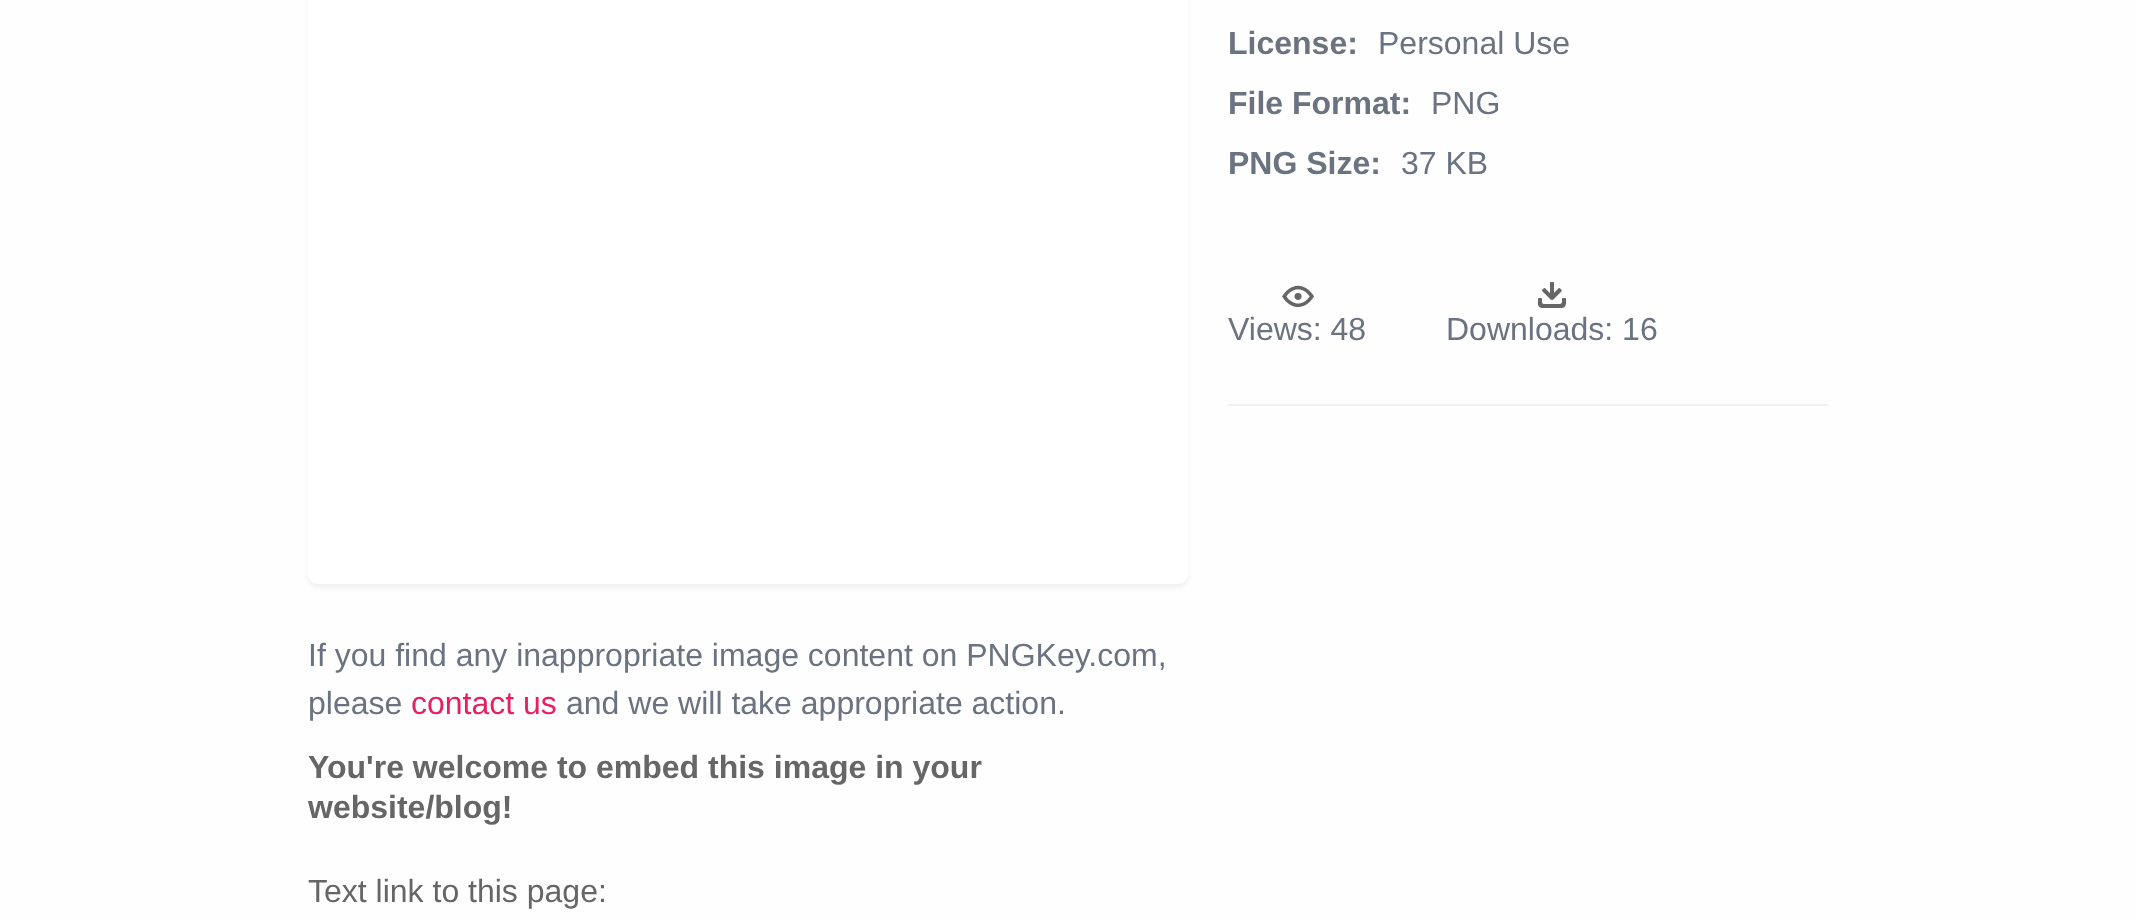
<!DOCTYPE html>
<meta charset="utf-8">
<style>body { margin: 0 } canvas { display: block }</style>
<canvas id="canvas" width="2136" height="920"></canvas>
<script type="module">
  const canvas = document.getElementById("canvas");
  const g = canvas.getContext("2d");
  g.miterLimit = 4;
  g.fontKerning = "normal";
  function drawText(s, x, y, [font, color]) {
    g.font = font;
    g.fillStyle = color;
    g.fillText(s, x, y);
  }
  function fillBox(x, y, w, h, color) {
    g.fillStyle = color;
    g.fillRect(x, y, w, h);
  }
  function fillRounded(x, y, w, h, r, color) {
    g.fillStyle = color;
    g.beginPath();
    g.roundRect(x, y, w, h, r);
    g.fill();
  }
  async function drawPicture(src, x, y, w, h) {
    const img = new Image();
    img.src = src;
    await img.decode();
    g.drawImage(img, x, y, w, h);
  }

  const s1 = ["bold 32px Liberation Sans", "#6B7381"];
  const s2 = ["32px Liberation Sans", "#6B7381"];
  const s3 = ["32px Liberation Sans", "#E91E63"];
  const s4 = ["bold 32px Liberation Sans", "#666666"];
  const s5 = ["32px Liberation Sans", "#666666"];

  fillBox(0, 0, 2136, 920, "#FEFEFE");
  drawText("License:", 1228, 54, s1);
  drawText("Personal Use", 1378, 54, s2);
  drawText("File Format:", 1228, 114, s1);
  drawText("PNG", 1431, 114, s2);
  drawText("PNG Size:", 1228, 174, s1);
  drawText("37 KB", 1401, 174, s2);
  fillBox(1228, 404, 600, 2, "#F1F1F1");
  await drawPicture("pic1.png", 1282, 285, 32, 22);
  drawText("Views: 48", 1228, 340, s2);
  await drawPicture("pic2.png", 1538, 282, 28, 26);
  drawText("Downloads: 16", 1446, 340, s2);
  g.fillStyle = "rgba(0, 0, 0, 0.05)";
  g.filter = "blur(2px)";
  g.beginPath();
  g.roundRect(308, -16, 880, 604, 10);
  g.fill();
  g.filter = "none";
  fillRounded(308, -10, 880, 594, 10, "#FFFFFF");
  drawText("If you find any inappropriate image content on PNGKey.com,", 308, 666, s2);
  drawText("please", 308, 714, s2);
  drawText("contact us", 411, 714, s3);
  drawText("and we will take appropriate action.", 566, 714, s2);
  drawText("You're welcome to embed this image in your", 308, 778, s4);
  drawText("website/blog!", 308, 818, s4);
  drawText("Text link to this page:", 308, 902, s5);
</script>
